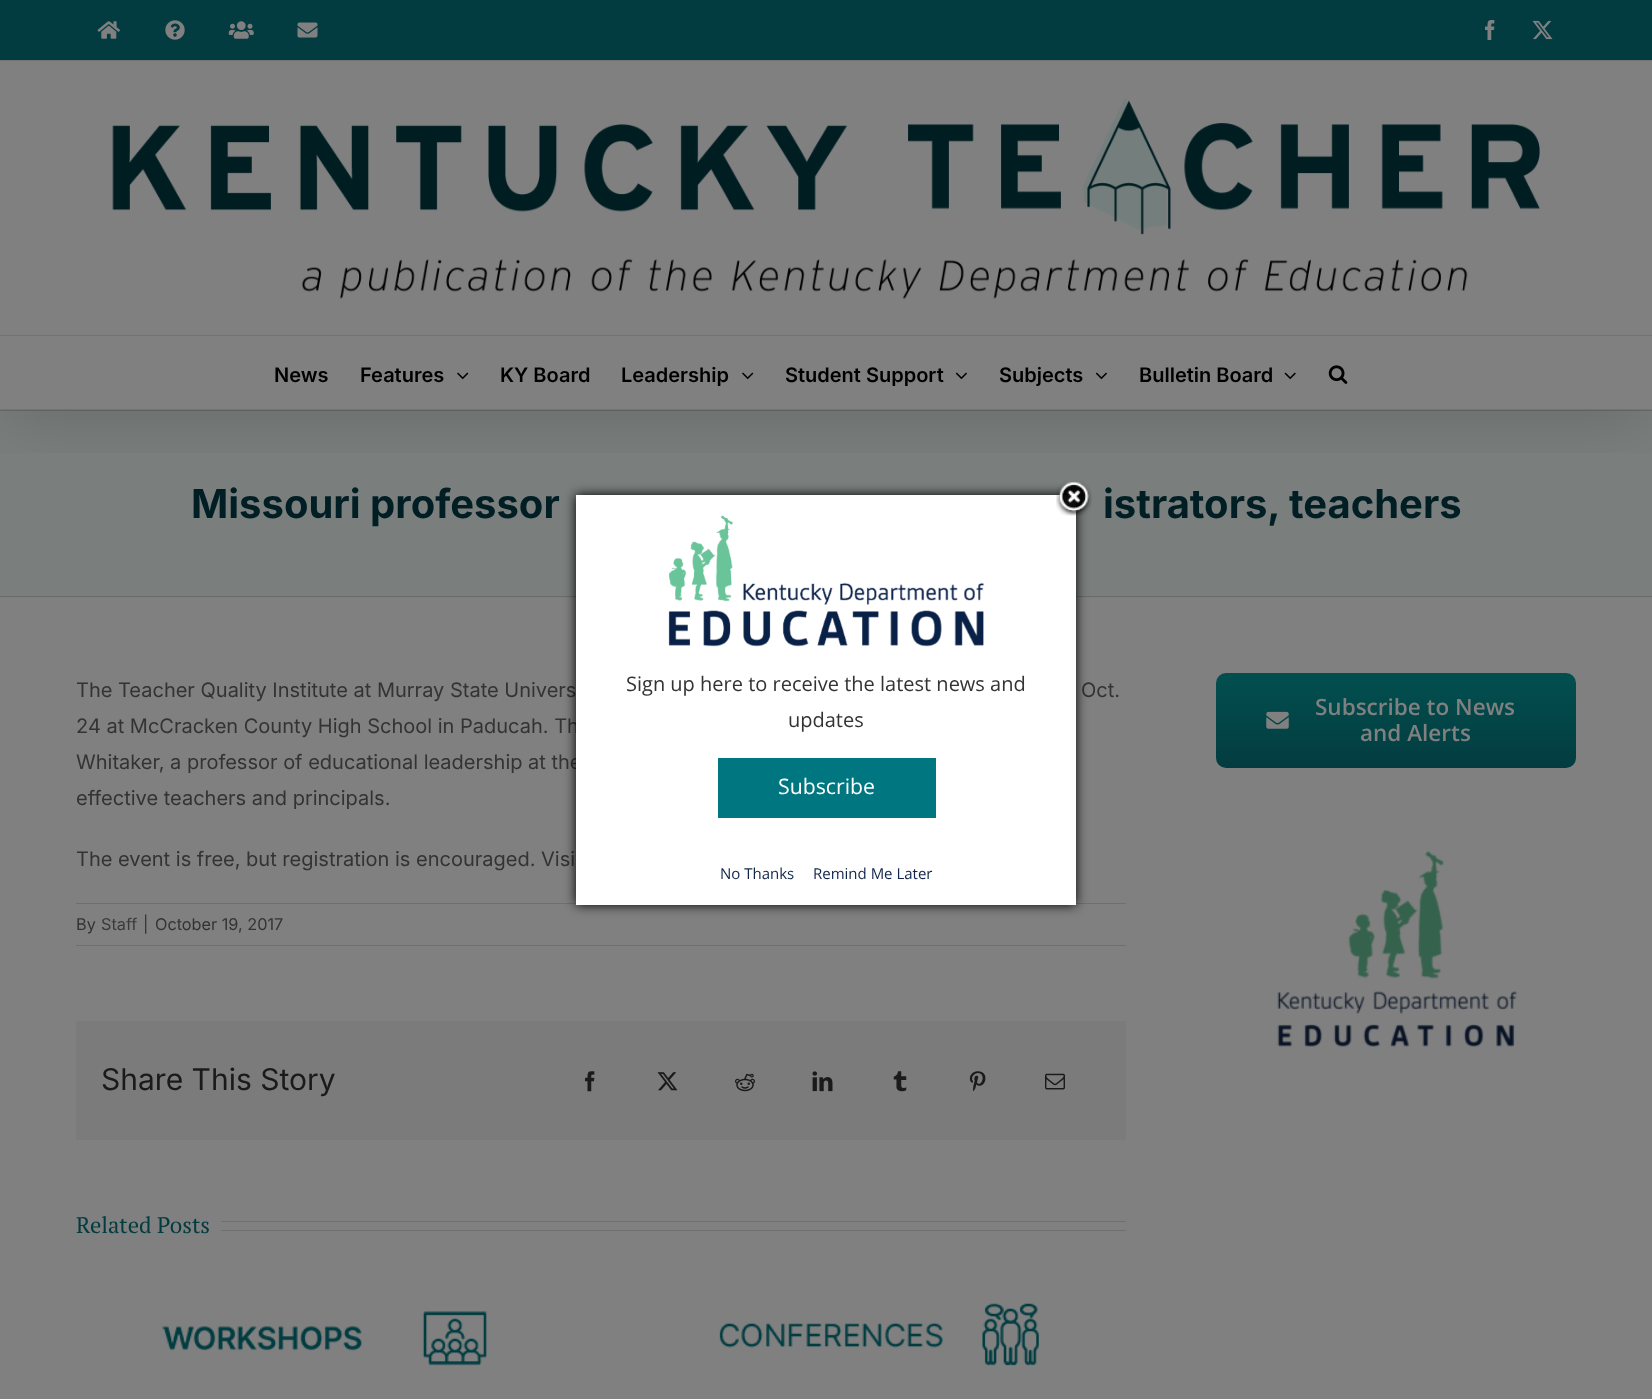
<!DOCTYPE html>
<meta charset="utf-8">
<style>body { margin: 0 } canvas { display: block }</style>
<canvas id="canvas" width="1652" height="1399"></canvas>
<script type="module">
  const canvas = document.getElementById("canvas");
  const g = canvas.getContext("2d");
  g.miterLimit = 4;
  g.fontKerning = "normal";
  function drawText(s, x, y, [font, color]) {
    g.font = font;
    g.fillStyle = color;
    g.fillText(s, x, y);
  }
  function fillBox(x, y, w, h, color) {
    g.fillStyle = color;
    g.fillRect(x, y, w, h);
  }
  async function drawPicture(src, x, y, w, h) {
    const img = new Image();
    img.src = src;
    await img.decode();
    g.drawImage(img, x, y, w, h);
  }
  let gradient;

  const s1 = ["600 20px Inter", "#000000"];
  const s2 = ["bold 40px Inter", "#001E23"];
  const s3 = ["20px Inter", "#333333"];
  const s4 = ["16.25px Inter", "#333333"];
  const s5 = ["16.25px Inter", "#3A3A3A"];
  const s6 = ["30px Inter", "#1A1A1A"];
  const s7 = ["22.5px PT Serif", "#033C40"];
  const s8 = ["600 22.5px Open Sans", "#808080"];
  const s9 = ["20px Open Sans", "#333333"];
  const s10 = ["21.25px Open Sans", "#FFFFFF"];
  const s11 = ["15px Open Sans", "#102649"];

  fillBox(0, 0, 1652, 1399, "#808080");
  fillBox(0, 411, 1652, 187, "#7A7F7E");
  fillBox(0, 410, 1652, 1, "#696A6A");
  g.save();
  g.beginPath();
  g.rect(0, 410, 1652, 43);
  g.clip();
  g.fillStyle = "rgba(0, 0, 0, 0.14)";
  g.filter = "blur(31px)";
  g.beginPath();
  g.rect(3, 15, 1647, 405);
  g.fill();
  g.filter = "none";
  g.restore();
  fillBox(0, 0, 1652, 60, "#033C40");
  fillBox(0, 60, 1652, 1, "#737373");
  await drawPicture("pic1.png", 97, 21, 23, 18);
  await drawPicture("pic2.png", 165, 20, 20, 20);
  await drawPicture("pic3.png", 228, 21, 26, 18);
  await drawPicture("pic4.png", 297, 22, 21, 16);
  await drawPicture("pic5.png", 1485, 20, 10, 20);
  await drawPicture("pic6.png", 1532, 20, 21, 20);
  fillBox(0, 335, 1652, 1, "#737373");
  await drawPicture("pic7.png", 112, 97, 1428, 202);
  fillBox(0, 409, 1652, 1, "#737373");
  drawText("News", 274, 382, s1);
  drawText("Features", 360, 382, s1);
  await drawPicture("pic8.png", 457, 372, 12, 8);
  drawText("KY Board", 500, 382, s1);
  drawText("Leadership", 621, 382, s1);
  await drawPicture("pic8.png", 742, 372, 12, 8);
  drawText("Student Support", 785, 382, s1);
  await drawPicture("pic9.png", 955, 372, 12, 8);
  drawText("Subjects", 999, 382, s1);
  await drawPicture("pic9.png", 1095, 372, 12, 8);
  drawText("Bulletin Board", 1139, 382, s1);
  await drawPicture("pic10.png", 1284, 372, 12, 8);
  await drawPicture("pic11.png", 1328, 365, 20, 19);
  fillBox(0, 596, 1652, 1, "#696A6A");
  drawText("Missouri professor", 191, 518, s2);
  drawText("istrators, teachers", 1103, 518, s2);
  drawText("The Teacher Quality Institute at Murray State Univers", 76, 697, s3);
  drawText("Oct.", 1081, 697, s3);
  drawText("24 at McCracken County High School in Paducah. Th", 76, 733, s3);
  drawText("Whitaker, a professor of educational leadership at the", 76, 769, s3);
  drawText("effective teachers and principals.", 76, 805, s3);
  drawText("The event is free, but registration is encouraged. Visi", 76, 866, s3);
  fillBox(76, 903, 1050, 1, "#706F6F");
  fillBox(76, 945, 1050, 1, "#706F6F");
  drawText("By", 76, 930, s4);
  drawText("Staff", 101, 930, s5);
  drawText("|", 143, 930, s4);
  drawText("October 19, 2017", 155, 930, s4);
  fillBox(76, 1021, 1050, 119, "#7B7B7B");
  drawText("Share This Story", 101, 1090, s6);
  await drawPicture("pic12.png", 585, 1071, 10, 21);
  await drawPicture("pic13.png", 657, 1072, 21, 19);
  await drawPicture("pic14.png", 735, 1073, 20, 19);
  await drawPicture("pic15.png", 812, 1071, 21, 21);
  await drawPicture("pic16.png", 893, 1071, 14, 21);
  await drawPicture("pic17.png", 969, 1071, 17, 21);
  await drawPicture("pic18.png", 1045, 1073, 20, 17);
  drawText("Related Posts", 76, 1233, s7);
  fillBox(221, 1221, 905, 1, "#706F6F");
  fillBox(221, 1230, 905, 1, "#706F6F");
  await drawPicture("pic19.png", 162, 1311, 325, 55);
  await drawPicture("pic20.png", 719, 1303, 320, 63);
  gradient = g.createLinearGradient(1396, 673, 1396, 768);
  gradient.addColorStop(0, "#024F4F");
  gradient.addColorStop(1, "#033C40");
  g.fillStyle = gradient;
  g.beginPath();
  g.roundRect(1216, 673, 360, 95, 10);
  g.fill();
  await drawPicture("pic21.png", 1266, 711, 23, 18);
  drawText("Subscribe to News", 1315, 715, s8);
  drawText("and Alerts", 1360, 741, s8);
  await drawPicture("pic22.png", 1277, 851, 241, 196);
  g.fillStyle = "#000000";
  g.filter = "blur(6px)";
  g.beginPath();
  g.rect(576, 495, 500, 410);
  g.fill();
  g.filter = "none";
  fillBox(576, 495, 500, 410, "#FFFFFF");
  await drawPicture("pic23.png", 1056, 481, 36, 35);
  await drawPicture("pic24.png", 668, 515, 317, 132);
  drawText("Sign up here to receive the latest news and", 626, 691, s9);
  drawText("updates", 788, 727, s9);
  fillBox(718, 758, 218, 60, "#007780");
  drawText("Subscribe", 778, 794, s10);
  drawText("No Thanks", 720, 879, s11);
  drawText("Remind Me Later", 813, 879, s11);
</script>
